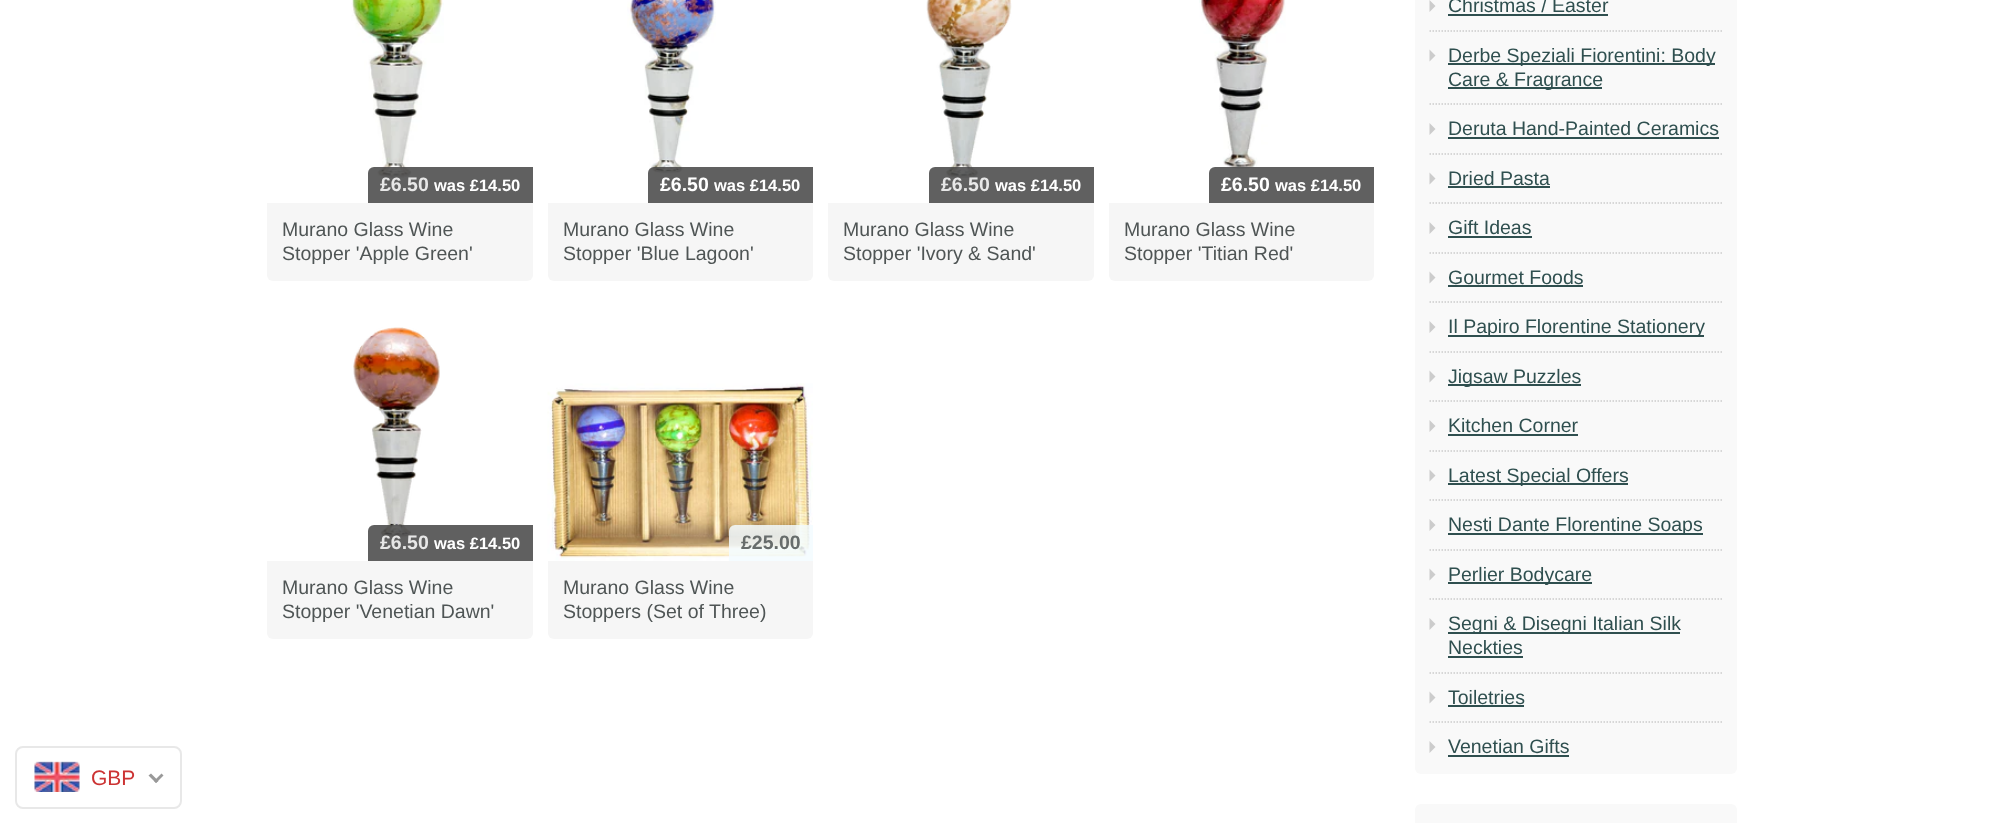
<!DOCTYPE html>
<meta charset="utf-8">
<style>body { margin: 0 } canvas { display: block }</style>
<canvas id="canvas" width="2004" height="823"></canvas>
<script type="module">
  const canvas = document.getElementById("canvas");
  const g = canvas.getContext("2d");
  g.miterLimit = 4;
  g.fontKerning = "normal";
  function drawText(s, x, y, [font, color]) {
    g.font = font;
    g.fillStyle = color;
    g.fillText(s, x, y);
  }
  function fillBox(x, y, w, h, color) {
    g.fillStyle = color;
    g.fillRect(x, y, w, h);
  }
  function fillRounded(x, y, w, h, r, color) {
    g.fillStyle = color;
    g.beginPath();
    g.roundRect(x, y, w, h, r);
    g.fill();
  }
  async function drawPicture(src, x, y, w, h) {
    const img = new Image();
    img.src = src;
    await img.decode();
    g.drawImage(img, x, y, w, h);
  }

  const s1 = ["bold 19.5px Liberation Sans", "#E7E7E7"];
  const s2 = ["bold 16.5px Liberation Sans", "#FFFFFF"];
  const s3 = ["19.5px Liberation Sans", "#4F5555"];
  const s4 = ["bold 19.5px Liberation Sans", "#FFFFFF"];
  const s5 = ["bold 19.5px Liberation Sans", "#676C6B"];
  const s6 = ["19.5px Liberation Sans", "#2F4F4F"];
  const s7 = ["21px Liberation Sans", "#CC3333"];

  fillBox(0, 0, 2004, 823, "#FFFFFF");
  await drawPicture("pic1.png", 351, 0, 93, 180);
  g.fillStyle = "rgba(68, 68, 68, 0.85)";
  g.beginPath();
  g.roundRect(368, 167, 165, 36, [6, 0, 0, 0]);
  g.fill();
  drawText("£6.50", 380, 191, s1);
  drawText("was £14.50", 434, 191, s2);
  g.fillStyle = "#F6F6F6";
  g.beginPath();
  g.roundRect(267, 203, 266, 78, [0, 0, 6, 6]);
  g.fill();
  drawText("Murano Glass Wine", 282, 236, s3);
  drawText("Stopper 'Apple Green'", 282, 260, s3);
  await drawPicture("pic2.png", 627, 0, 89, 175);
  g.fillStyle = "rgba(68, 68, 68, 0.85)";
  g.beginPath();
  g.roundRect(648, 167, 165, 36, [6, 0, 0, 0]);
  g.fill();
  drawText("£6.50", 660, 191, s4);
  drawText("was £14.50", 714, 191, s2);
  g.fillStyle = "#F6F6F6";
  g.beginPath();
  g.roundRect(548, 203, 265, 78, [0, 0, 6, 6]);
  g.fill();
  drawText("Murano Glass Wine", 563, 236, s3);
  drawText("Stopper 'Blue Lagoon'", 563, 260, s3);
  await drawPicture("pic3.png", 926, 0, 86, 178);
  g.fillStyle = "rgba(68, 68, 68, 0.85)";
  g.beginPath();
  g.roundRect(929, 167, 165, 36, [6, 0, 0, 0]);
  g.fill();
  drawText("£6.50", 941, 191, s1);
  drawText("was £14.50", 995, 191, s2);
  g.fillStyle = "#F6F6F6";
  g.beginPath();
  g.roundRect(828, 203, 266, 78, [0, 0, 6, 6]);
  g.fill();
  drawText("Murano Glass Wine", 843, 236, s3);
  drawText("Stopper 'Ivory & Sand'", 843, 260, s3);
  await drawPicture("pic4.png", 1199, 0, 87, 171);
  g.fillStyle = "rgba(68, 68, 68, 0.85)";
  g.beginPath();
  g.roundRect(1209, 167, 165, 36, [6, 0, 0, 0]);
  g.fill();
  drawText("£6.50", 1221, 191, s4);
  drawText("was £14.50", 1275, 191, s2);
  g.fillStyle = "#F6F6F6";
  g.beginPath();
  g.roundRect(1109, 203, 265, 78, [0, 0, 6, 6]);
  g.fill();
  drawText("Murano Glass Wine", 1124, 236, s3);
  drawText("Stopper 'Titian Red'", 1124, 260, s3);
  await drawPicture("pic5.png", 353, 327, 87, 211);
  g.fillStyle = "rgba(68, 68, 68, 0.85)";
  g.beginPath();
  g.roundRect(368, 525, 165, 36, [6, 0, 0, 0]);
  g.fill();
  drawText("£6.50", 380, 549, s1);
  drawText("was £14.50", 434, 549, s2);
  g.fillStyle = "#F6F6F6";
  g.beginPath();
  g.roundRect(267, 561, 266, 78, [0, 0, 6, 6]);
  g.fill();
  drawText("Murano Glass Wine", 282, 594, s3);
  drawText("Stopper 'Venetian Dawn'", 282, 618, s3);
  await drawPicture("pic6.png", 547, 383, 266, 178);
  g.fillStyle = "rgba(243, 252, 255, 0.85)";
  g.beginPath();
  g.roundRect(729, 525, 84, 36, [6, 0, 0, 0]);
  g.fill();
  drawText("£25.00", 741, 549, s5);
  g.fillStyle = "#F6F6F6";
  g.beginPath();
  g.roundRect(548, 561, 265, 78, [0, 0, 6, 6]);
  g.fill();
  drawText("Murano Glass Wine", 563, 594, s3);
  drawText("Stoppers (Set of Three)", 563, 618, s3);
  fillRounded(1415, -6, 322, 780, 6, "#F9F9F9");
  g.beginPath();
  g.moveTo(1429.5, 31);
  g.lineTo(1722, 31);
  g.strokeStyle = "#CCCCCC";
  g.lineWidth = 1.5;
  g.setLineDash([1.5, 1.5]);
  g.stroke();
  g.fillStyle = "#CCCCCC";
  g.beginPath();
  g.moveTo(1429.5, 12);
  g.lineTo(1429.5, 0);
  g.lineTo(1435.5, 6);
  g.closePath();
  g.moveTo(1429.5, 61.5);
  g.lineTo(1429.5, 49.5);
  g.lineTo(1435.5, 55.5);
  g.closePath();
  g.fill();
  drawText("Christmas / Easter", 1448, 12, s6);
  fillBox(1448, 14, 160, 2, "#2F4F4F");
  fillBox(1448, 63, 267, 2, "#2F4F4F");
  drawText("Derbe Speziali Fiorentini: Body", 1448, 62, s6);
  fillBox(1448, 87, 154, 2, "#2F4F4F");
  drawText("Care & Fragrance", 1448, 86, s6);
  g.beginPath();
  g.moveTo(1429.5, 104);
  g.lineTo(1722, 104);
  g.stroke();
  g.beginPath();
  g.moveTo(1429.5, 154);
  g.lineTo(1722, 154);
  g.stroke();
  g.fillStyle = "#CCCCCC";
  g.beginPath();
  g.moveTo(1429.5, 135);
  g.lineTo(1429.5, 123);
  g.lineTo(1435.5, 129);
  g.closePath();
  g.moveTo(1429.5, 184.5);
  g.lineTo(1429.5, 172.5);
  g.lineTo(1435.5, 178.5);
  g.closePath();
  g.fill();
  drawText("Deruta Hand-Painted Ceramics", 1448, 135, s6);
  fillBox(1448, 137, 271, 2, "#2F4F4F");
  drawText("Dried Pasta", 1448, 185, s6);
  fillBox(1448, 186, 102, 2, "#2F4F4F");
  g.beginPath();
  g.moveTo(1429.5, 203);
  g.lineTo(1722, 203);
  g.stroke();
  g.beginPath();
  g.moveTo(1429.5, 253);
  g.lineTo(1722, 253);
  g.stroke();
  g.fillStyle = "#CCCCCC";
  g.beginPath();
  g.moveTo(1429.5, 234);
  g.lineTo(1429.5, 222);
  g.lineTo(1435.5, 228);
  g.closePath();
  g.moveTo(1429.5, 283.5);
  g.lineTo(1429.5, 271.5);
  g.lineTo(1435.5, 277.5);
  g.closePath();
  g.fill();
  drawText("Gift Ideas", 1448, 234, s6);
  fillBox(1448, 236, 84, 2, "#2F4F4F");
  drawText("Gourmet Foods", 1448, 284, s6);
  fillBox(1448, 285, 135, 2, "#2F4F4F");
  g.beginPath();
  g.moveTo(1429.5, 302);
  g.lineTo(1722, 302);
  g.stroke();
  g.beginPath();
  g.moveTo(1429.5, 352);
  g.lineTo(1722, 352);
  g.stroke();
  g.fillStyle = "#CCCCCC";
  g.beginPath();
  g.moveTo(1429.5, 333);
  g.lineTo(1429.5, 321);
  g.lineTo(1435.5, 327);
  g.closePath();
  g.moveTo(1429.5, 382.5);
  g.lineTo(1429.5, 370.5);
  g.lineTo(1435.5, 376.5);
  g.closePath();
  g.fill();
  fillBox(1448, 335, 256, 2, "#2F4F4F");
  drawText("Il Papiro Florentine Stationery", 1448, 333, s6);
  fillBox(1448, 384, 133, 2, "#2F4F4F");
  drawText("Jigsaw Puzzles", 1448, 383, s6);
  g.beginPath();
  g.moveTo(1429.5, 401);
  g.lineTo(1722, 401);
  g.stroke();
  g.beginPath();
  g.moveTo(1429.5, 451);
  g.lineTo(1722, 451);
  g.stroke();
  g.fillStyle = "#CCCCCC";
  g.beginPath();
  g.moveTo(1429.5, 432);
  g.lineTo(1429.5, 420);
  g.lineTo(1435.5, 426);
  g.closePath();
  g.moveTo(1429.5, 481.5);
  g.lineTo(1429.5, 469.5);
  g.lineTo(1435.5, 475.5);
  g.closePath();
  g.fill();
  drawText("Kitchen Corner", 1448, 432, s6);
  fillBox(1448, 434, 130, 2, "#2F4F4F");
  fillBox(1448, 483, 180, 2, "#2F4F4F");
  drawText("Latest Special Offers", 1448, 482, s6);
  g.beginPath();
  g.moveTo(1429.5, 500);
  g.lineTo(1722, 500);
  g.stroke();
  g.beginPath();
  g.moveTo(1429.5, 550);
  g.lineTo(1722, 550);
  g.stroke();
  g.fillStyle = "#CCCCCC";
  g.beginPath();
  g.moveTo(1429.5, 531);
  g.lineTo(1429.5, 519);
  g.lineTo(1435.5, 525);
  g.closePath();
  g.moveTo(1429.5, 580.5);
  g.lineTo(1429.5, 568.5);
  g.lineTo(1435.5, 574.5);
  g.closePath();
  g.fill();
  fillBox(1448, 533, 255, 2, "#2F4F4F");
  drawText("Nesti Dante Florentine Soaps", 1448, 531, s6);
  fillBox(1448, 582, 144, 2, "#2F4F4F");
  drawText("Perlier Bodycare", 1448, 581, s6);
  g.beginPath();
  g.moveTo(1429.5, 599);
  g.lineTo(1722, 599);
  g.stroke();
  g.fillStyle = "#CCCCCC";
  g.beginPath();
  g.moveTo(1429.5, 630);
  g.lineTo(1429.5, 618);
  g.lineTo(1435.5, 624);
  g.closePath();
  g.fill();
  fillBox(1448, 632, 232, 2, "#2F4F4F");
  drawText("Segni & Disegni Italian Silk", 1448, 630, s6);
  drawText("Neckties", 1448, 654, s6);
  fillBox(1448, 656, 75, 2, "#2F4F4F");
  g.beginPath();
  g.moveTo(1429.5, 673);
  g.lineTo(1722, 673);
  g.stroke();
  g.beginPath();
  g.moveTo(1429.5, 722);
  g.lineTo(1722, 722);
  g.stroke();
  g.fillStyle = "#CCCCCC";
  g.beginPath();
  g.moveTo(1429.5, 703.5);
  g.lineTo(1429.5, 691.5);
  g.lineTo(1435.5, 697.5);
  g.closePath();
  g.moveTo(1429.5, 753);
  g.lineTo(1429.5, 741);
  g.lineTo(1435.5, 747);
  g.closePath();
  g.fill();
  drawText("Toiletries", 1448, 704, s6);
  fillBox(1448, 705, 76, 2, "#2F4F4F");
  drawText("Venetian Gifts", 1448, 753, s6);
  fillBox(1448, 755, 121, 2, "#2F4F4F");
  fillRounded(1415, 804, 322, 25, 6, "#F9F9F9");
  g.beginPath();
  g.roundRect(16, 747, 165, 61, 7);
  g.strokeStyle = "#E8E8E8";
  g.lineWidth = 2;
  g.setLineDash([]);
  g.stroke();
  await drawPicture("pic7.png", 34, 761, 46, 31);
  drawText("GBP", 91, 785, s7);
  g.fillStyle = "#999999";
  g.beginPath();
  g.moveTo(161.5, 773.5);
  g.lineTo(163.5, 775.5);
  g.lineTo(156, 783);
  g.lineTo(154, 781);
  g.closePath();
  g.fill();
  g.beginPath();
  g.moveTo(151, 773.5);
  g.lineTo(158.5, 781);
  g.lineTo(156, 783);
  g.lineTo(148.5, 775.5);
  g.closePath();
  g.fill();
</script>
